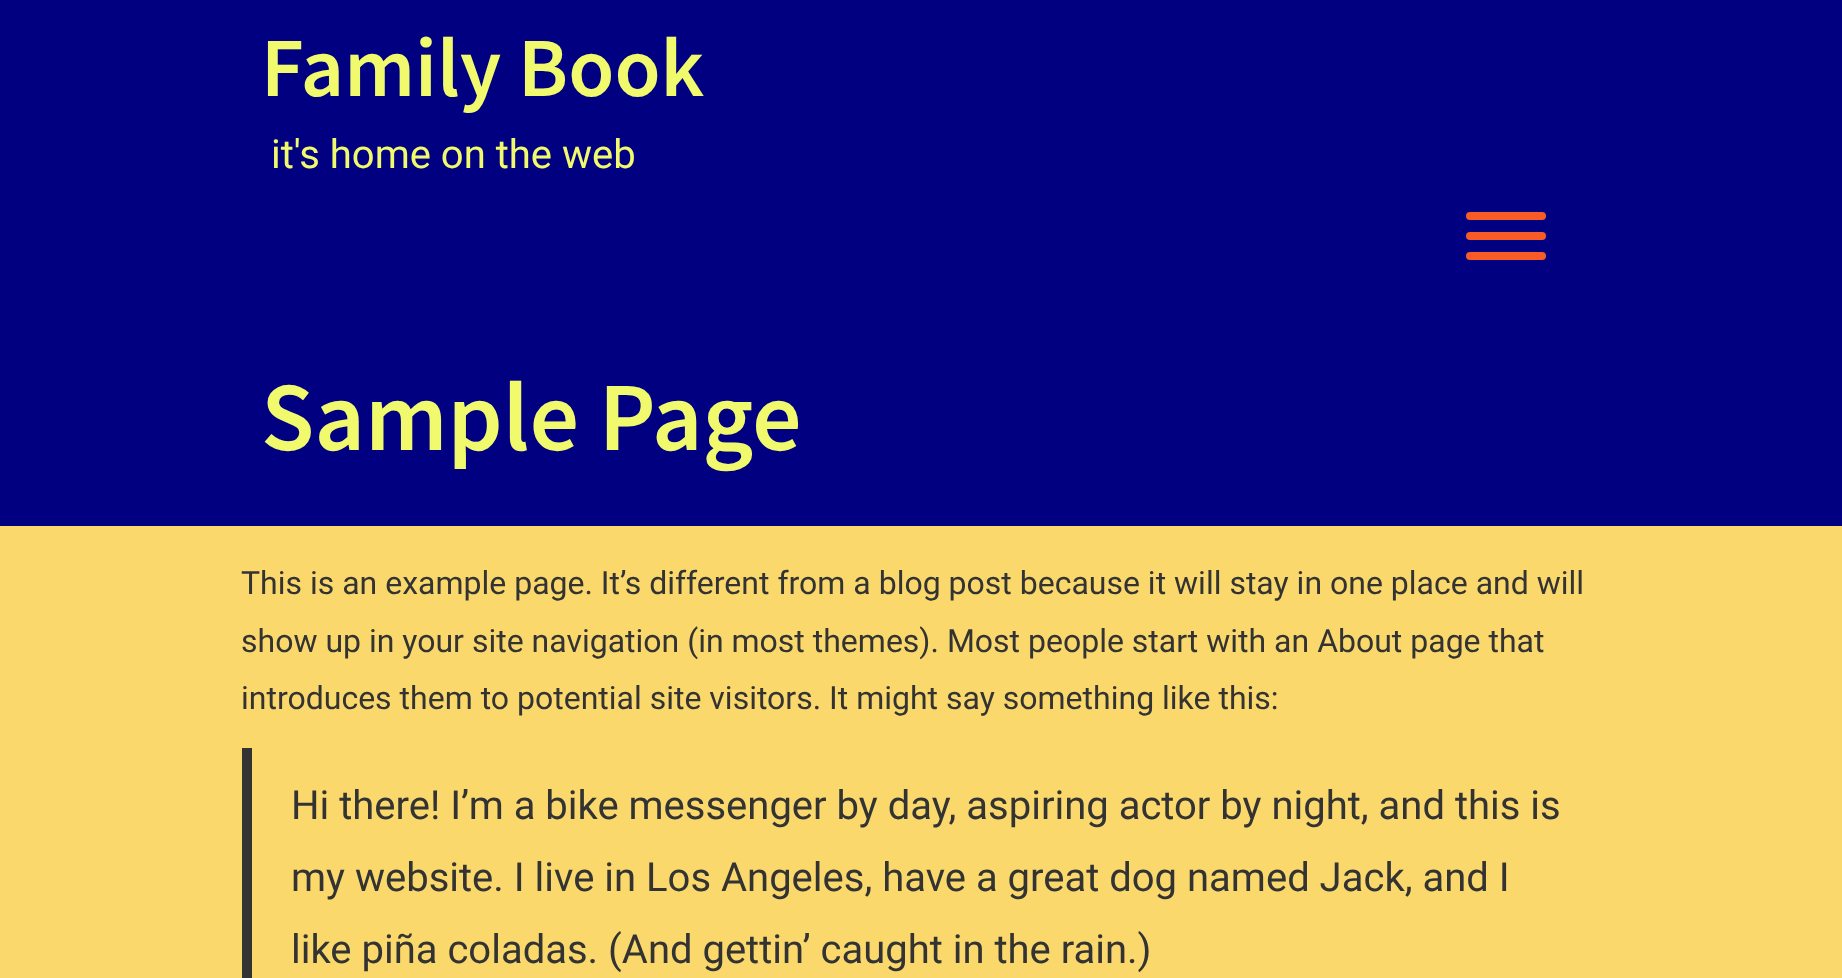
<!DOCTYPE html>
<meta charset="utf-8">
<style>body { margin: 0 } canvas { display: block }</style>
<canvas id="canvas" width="1842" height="978"></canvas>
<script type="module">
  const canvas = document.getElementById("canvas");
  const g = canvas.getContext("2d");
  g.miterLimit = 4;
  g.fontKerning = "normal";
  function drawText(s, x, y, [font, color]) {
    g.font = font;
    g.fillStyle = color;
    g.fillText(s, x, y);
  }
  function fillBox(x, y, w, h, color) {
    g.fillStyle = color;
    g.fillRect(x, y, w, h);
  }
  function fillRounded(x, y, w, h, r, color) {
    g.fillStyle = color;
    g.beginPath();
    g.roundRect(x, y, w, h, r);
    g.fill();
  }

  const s1 = ["600 84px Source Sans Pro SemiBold", "#F0FA6C"];
  const s2 = ["40px Roboto", "#F0FA6C"];
  const s3 = ["600 98px Source Sans Pro SemiBold", "#F0FA6C"];
  const s4 = ["32px Roboto", "#333333"];
  const s5 = ["40px Roboto", "#333333"];

  fillBox(0, 0, 1842, 978, "#FAD86B");
  fillBox(0, 0, 1842, 526, "#000080");
  drawText("Family Book", 261, 96, s1);
  drawText("it's home on the web", 271, 168, s2);
  fillRounded(1466, 252, 80, 8, 4, "#F95B26");
  fillRounded(1466, 212, 80, 8, 4, "#F95B26");
  fillRounded(1466, 232, 80, 8, 4, "#F95B26");
  drawText("Sample Page", 261, 450, s3);
  drawText("This is an example page. It’s different from a blog post because it will stay in one place and will", 241, 594, s4);
  drawText("show up in your site navigation (in most themes). Most people start with an About page that", 241, 652, s4);
  drawText("introduces them to potential site visitors. It might say something like this:", 241, 709, s4);
  fillBox(242, 748, 10, 230, "#333333");
  drawText("Hi there! I’m a bike messenger by day, aspiring actor by night, and this is", 291, 819, s5);
  drawText("my website. I live in Los Angeles, have a great dog named Jack, and I", 291, 891, s5);
  drawText("like piña coladas. (And gettin’ caught in the rain.)", 291, 963, s5);
</script>
